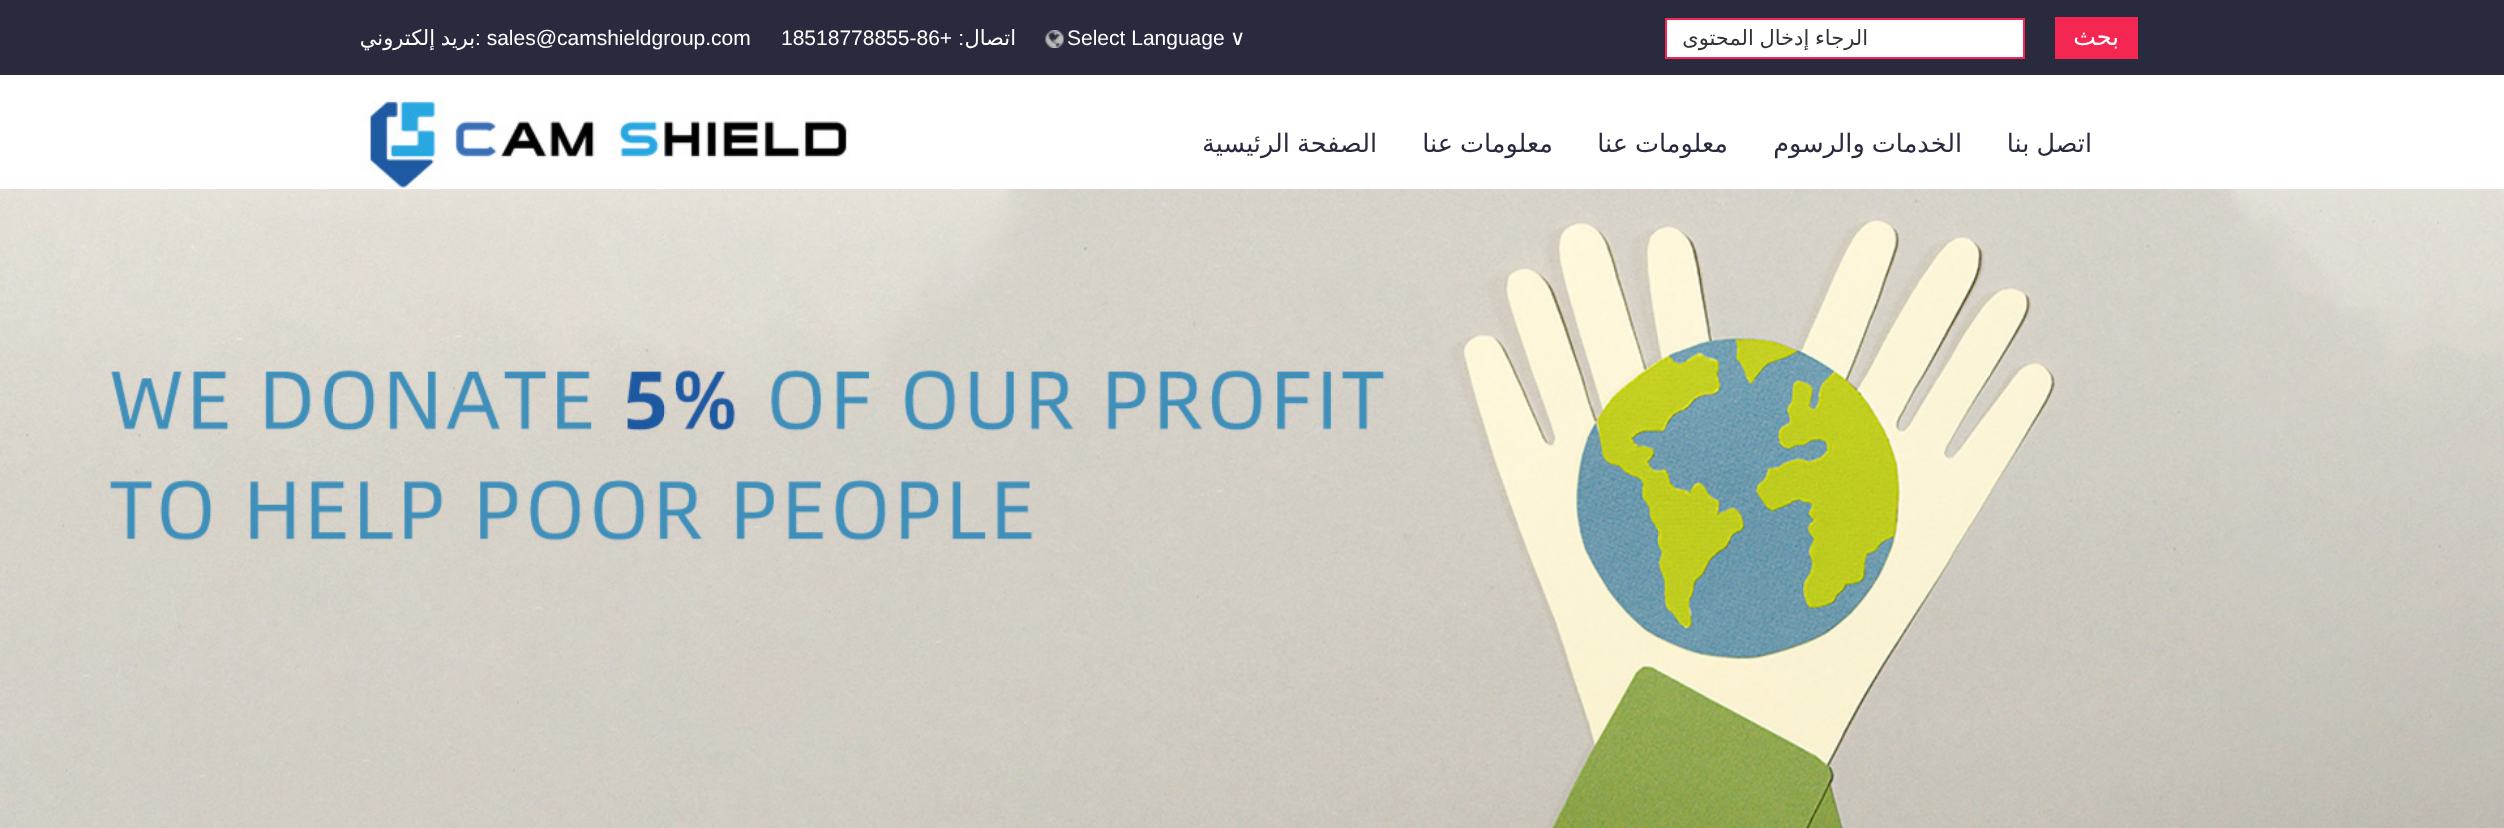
<!DOCTYPE html>
<meta charset="utf-8">
<style>body { margin: 0 } canvas { display: block }</style>
<canvas id="canvas" width="2504" height="828"></canvas>
<script type="module">
  const canvas = document.getElementById("canvas");
  const g = canvas.getContext("2d");
  g.miterLimit = 4;
  g.fontKerning = "normal";
  function drawText(s, x, y, [font, color]) {
    g.font = font;
    g.fillStyle = color;
    g.fillText(s, x, y);
  }
  function fillBox(x, y, w, h, color) {
    g.fillStyle = color;
    g.fillRect(x, y, w, h);
  }
  async function drawPicture(src, x, y, w, h) {
    const img = new Image();
    img.src = src;
    await img.decode();
    g.drawImage(img, x, y, w, h);
  }

  const s1 = ["24px DejaVu Sans", "#FFFFFF"];
  const s2 = ["21px DejaVu Sans", "#333333"];
  const s3 = ["21px DejaVu Sans", "#FFFFFF"];
  const s4 = ["21px Liberation Sans", "#FFFFFF"];
  const s5 = ["25.5px DejaVu Sans", "#2A2A3F"];

  fillBox(0, 0, 2504, 828, "#FFFFFF");
  fillBox(0, 0, 2504, 75, "#2A2A3F");
  fillBox(2055, 17, 83, 42, "#F42753");
  g.direction = "rtl";
  drawText("بحث", 2119, 45, s1);
  g.beginPath();
  g.rect(1666, 19, 358, 39);
  g.fill();
  g.strokeStyle = "#F42753";
  g.lineWidth = 2;
  g.stroke();
  g.wordSpacing = "-1px";
  drawText("الرجاء إدخال المحتوى", 1868, 45, s2);
  g.wordSpacing = "0px";
  g.direction = "ltr";
  drawText("∨", 1230, 45, s3);
  drawText("Select Language", 1067, 45, s4);
  await drawPicture("pic1.png", 1045, 30, 19, 18);
  g.direction = "rtl";
  drawText("اتصال", 1016, 45, s3);
  drawText(":", 964, 45, s4);
  g.direction = "ltr";
  drawText("18518778855-86+", 781, 45, s4);
  drawText(": sales@camshieldgroup.com", 475, 45, s4);
  g.wordSpacing = "-1px";
  g.direction = "rtl";
  drawText("بريد إلكتروني", 475, 45, s3);
  drawText("اتصل بنا", 2092, 152, s5);
  drawText("الخدمات والرسوم", 1962, 152, s5);
  drawText("معلومات عنا", 1728, 152, s5);
  drawText("معلومات عنا", 1553, 152, s5);
  drawText("الصفحة الرئيسية", 1377, 152, s5);
  await drawPicture("pic2.png", 360, 99, 490, 90);
  await drawPicture("pic3.png", 0, 189, 2504, 639);
</script>
